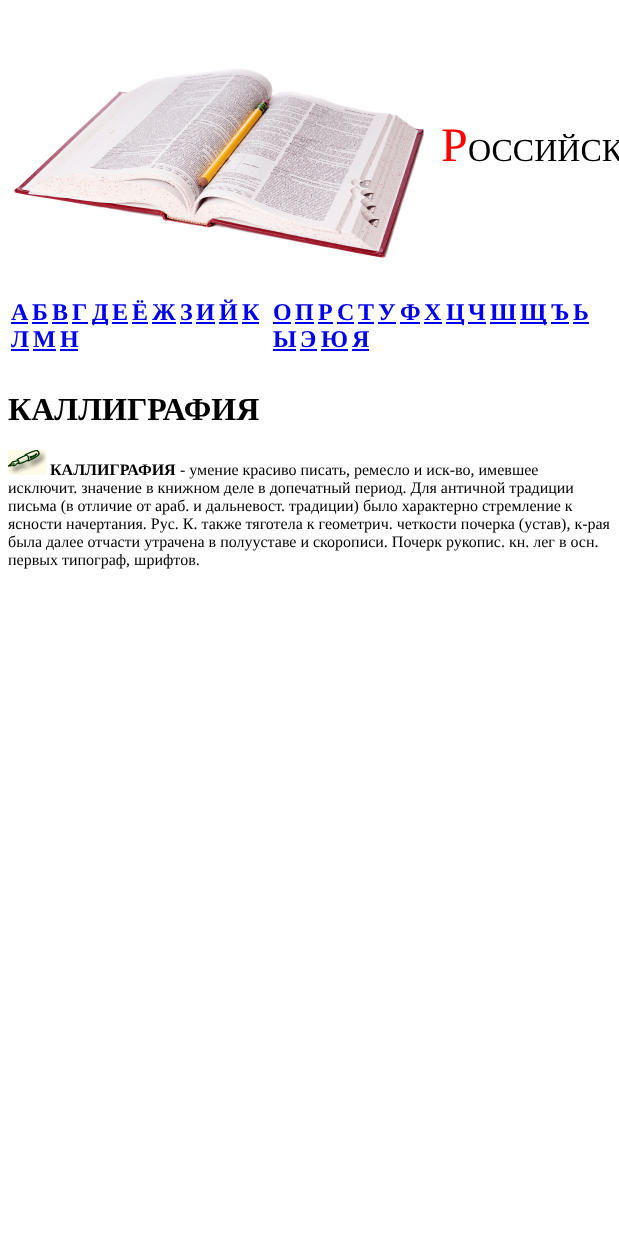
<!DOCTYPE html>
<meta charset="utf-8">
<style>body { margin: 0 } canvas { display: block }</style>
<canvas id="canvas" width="619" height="1236"></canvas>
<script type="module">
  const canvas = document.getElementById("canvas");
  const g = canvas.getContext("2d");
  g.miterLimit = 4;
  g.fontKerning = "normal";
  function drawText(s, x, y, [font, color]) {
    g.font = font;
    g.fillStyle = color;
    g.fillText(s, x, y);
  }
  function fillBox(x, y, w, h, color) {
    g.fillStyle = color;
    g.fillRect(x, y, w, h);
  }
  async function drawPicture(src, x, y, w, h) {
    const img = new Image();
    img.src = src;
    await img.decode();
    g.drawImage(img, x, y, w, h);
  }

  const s1 = ["48px Liberation Serif", "#FF0000"];
  const s2 = ["32px Liberation Serif", "#000000"];
  const s3 = ["bold 24px Liberation Serif", "#0000EE"];
  const s4 = ["bold 32px Liberation Serif", "#000000"];
  const s5 = ["bold 16px Liberation Serif", "#000000"];
  const s6 = ["16px Liberation Serif", "#000000"];

  fillBox(0, 0, 619, 1236, "#FFFFFF");
  await drawPicture("pic1.png", 14, 68, 411, 190);
  drawText("Р", 441, 161, s1);
  drawText("ОССИЙСК", 468, 161, s2);
  drawText("А", 11, 320, s3);
  fillBox(11, 322, 17, 2, "#0000EE");
  drawText("Б", 32, 320, s3);
  fillBox(32, 322, 16, 2, "#0000EE");
  drawText("В", 52, 320, s3);
  fillBox(52, 322, 16, 2, "#0000EE");
  drawText("Г", 72, 320, s3);
  fillBox(72, 322, 16, 2, "#0000EE");
  fillBox(92, 322, 16, 2, "#0000EE");
  drawText("Д", 92, 320, s3);
  drawText("Е", 112, 320, s3);
  fillBox(112, 322, 16, 2, "#0000EE");
  drawText("Ё", 132, 320, s3);
  fillBox(132, 322, 16, 2, "#0000EE");
  drawText("Ж", 152, 320, s3);
  fillBox(152, 322, 24, 2, "#0000EE");
  drawText("З", 180, 320, s3);
  fillBox(180, 322, 12, 2, "#0000EE");
  drawText("И", 196, 320, s3);
  fillBox(196, 322, 19, 2, "#0000EE");
  drawText("Й", 219, 320, s3);
  fillBox(219, 322, 19, 2, "#0000EE");
  drawText("К", 242, 320, s3);
  fillBox(242, 322, 17, 2, "#0000EE");
  drawText("Л", 11, 347, s3);
  fillBox(11, 349, 18, 2, "#0000EE");
  drawText("М", 33, 347, s3);
  fillBox(33, 349, 23, 2, "#0000EE");
  drawText("Н", 60, 347, s3);
  fillBox(60, 349, 18, 2, "#0000EE");
  drawText("О", 273, 320, s3);
  fillBox(273, 322, 18, 2, "#0000EE");
  drawText("П", 295, 320, s3);
  fillBox(295, 322, 19, 2, "#0000EE");
  drawText("Р", 318, 320, s3);
  fillBox(318, 322, 15, 2, "#0000EE");
  drawText("С", 337, 320, s3);
  fillBox(337, 322, 17, 2, "#0000EE");
  drawText("Т", 358, 320, s3);
  fillBox(358, 322, 16, 2, "#0000EE");
  drawText("У", 378, 320, s3);
  fillBox(378, 322, 18, 2, "#0000EE");
  drawText("Ф", 400, 320, s3);
  fillBox(400, 322, 20, 2, "#0000EE");
  drawText("Х", 424, 320, s3);
  fillBox(424, 322, 18, 2, "#0000EE");
  fillBox(446, 322, 18, 2, "#0000EE");
  drawText("Ц", 446, 320, s3);
  drawText("Ч", 468, 320, s3);
  fillBox(468, 322, 18, 2, "#0000EE");
  drawText("Ш", 490, 320, s3);
  fillBox(490, 322, 26, 2, "#0000EE");
  fillBox(520, 322, 27, 2, "#0000EE");
  drawText("Щ", 520, 320, s3);
  drawText("Ъ", 551, 320, s3);
  fillBox(551, 322, 18, 2, "#0000EE");
  drawText("Ь", 573, 320, s3);
  fillBox(573, 322, 16, 2, "#0000EE");
  drawText("Ы", 273, 347, s3);
  fillBox(273, 349, 23, 2, "#0000EE");
  drawText("Э", 300, 347, s3);
  fillBox(300, 349, 17, 2, "#0000EE");
  drawText("Ю", 321, 347, s3);
  fillBox(321, 349, 27, 2, "#0000EE");
  drawText("Я", 352, 347, s3);
  fillBox(352, 349, 17, 2, "#0000EE");
  drawText("КАЛЛИГРАФИЯ", 8, 420, s4);
  await drawPicture("pic2.png", 8, 450, 38, 25);
  drawText("КАЛЛИГРАФИЯ", 50, 475, s5);
  drawText("- умение красиво писать, ремесло и иск-во, имевшее", 180, 475, s6);
  drawText("исключит. значение в книжном деле в допечатный период. Для античной традиции", 8, 493, s6);
  drawText("письма (в отличие от араб. и дальневост. традиции) было характерно стремление к", 8, 511, s6);
  drawText("ясности начертания. Рус. К. также тяготела к геометрич. четкости почерка (устав), к-рая", 8, 529, s6);
  drawText("была далее отчасти утрачена в полууставе и скорописи. Почерк рукопис. кн. лег в осн.", 8, 547, s6);
  drawText("первых типограф, шрифтов.", 8, 565, s6);
</script>
